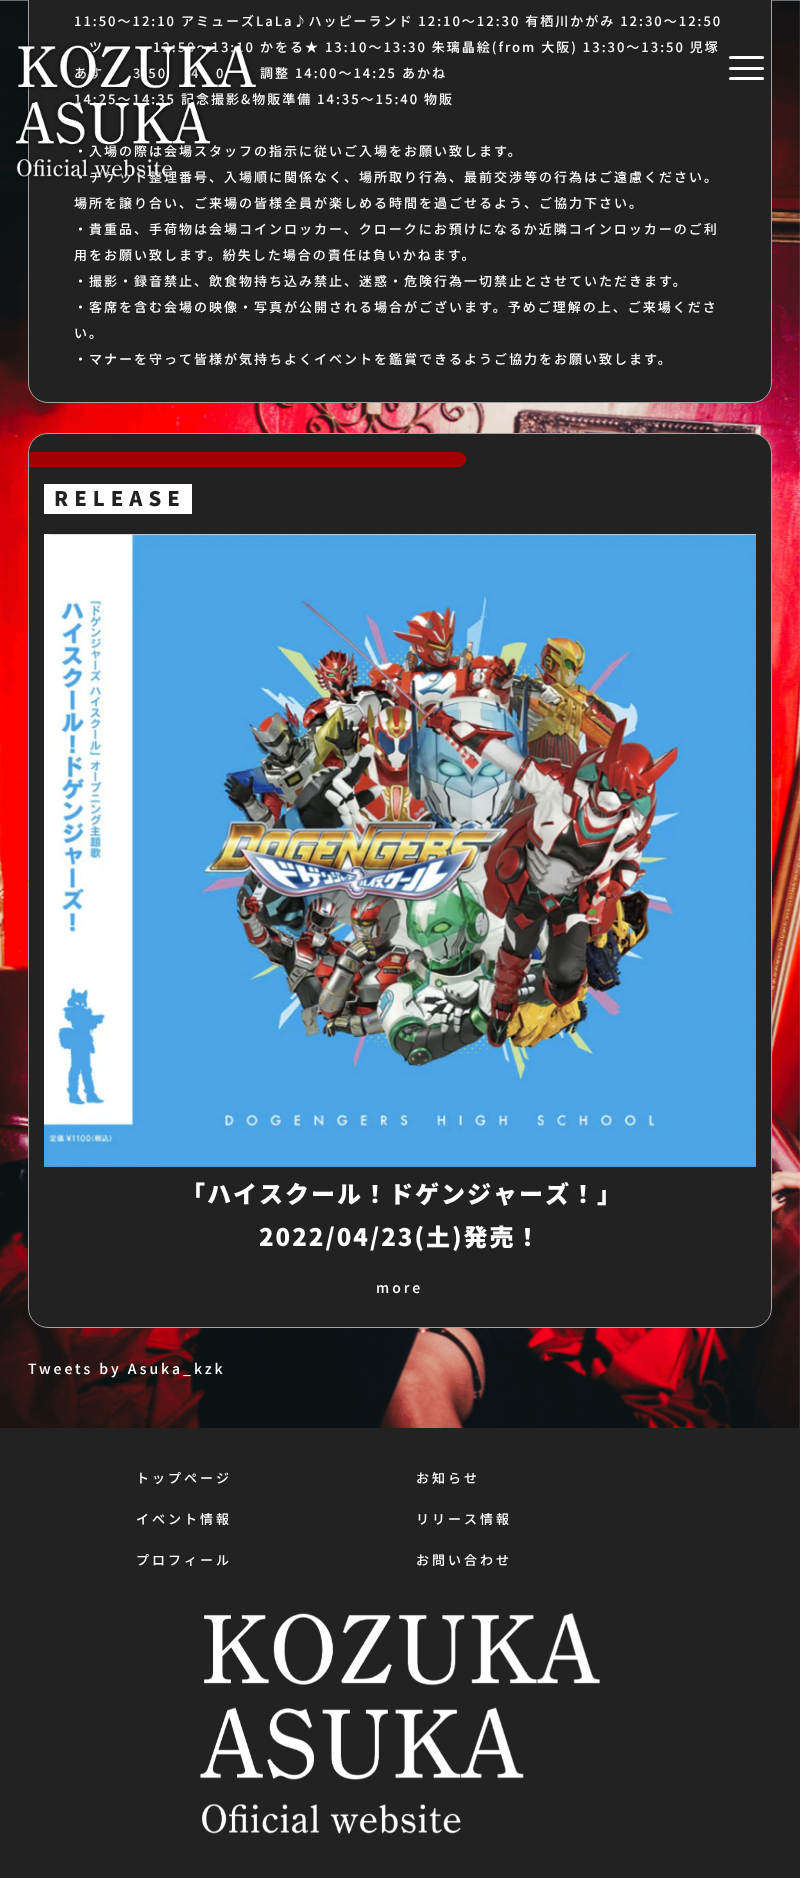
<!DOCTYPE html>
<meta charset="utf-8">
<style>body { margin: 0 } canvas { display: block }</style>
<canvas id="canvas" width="800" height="1878"></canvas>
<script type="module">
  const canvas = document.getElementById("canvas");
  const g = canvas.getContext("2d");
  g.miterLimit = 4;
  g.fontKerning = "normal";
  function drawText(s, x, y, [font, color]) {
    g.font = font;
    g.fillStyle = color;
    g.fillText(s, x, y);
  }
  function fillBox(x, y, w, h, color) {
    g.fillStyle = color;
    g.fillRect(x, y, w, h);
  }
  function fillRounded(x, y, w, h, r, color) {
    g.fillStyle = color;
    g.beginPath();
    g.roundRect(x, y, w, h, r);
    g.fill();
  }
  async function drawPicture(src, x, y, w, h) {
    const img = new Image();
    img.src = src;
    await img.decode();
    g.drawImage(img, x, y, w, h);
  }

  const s1 = ["500 13px Noto Sans JP", "#FFFFFF"];
  const s2 = ["900 20px Noto Sans JP", "#222222"];
  const s3 = ["900 24px Noto Sans JP", "#FFFFFF"];
  const s4 = ["500 14px Noto Sans JP", "#FFFFFF"];

  fillBox(0, 0, 800, 1878, "#FFFFFF");
  await drawPicture("pic1.png", 0, 0, 800, 1428);
  g.fillStyle = "#222222";
  g.beginPath();
  g.roundRect(28.5, -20.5, 743, 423, 19.5);
  g.fill();
  g.strokeStyle = "#A3A3A3";
  g.stroke();
  g.letterSpacing = "2px";
  drawText("11:50～12:10 アミューズLaLa♪ハッピーランド 12:10～12:30 有栖川かがみ 12:30～12:50", 74, 26, s1);
  drawText("ツ", 89, 52, s1);
  drawText("12:50～13:10 かをる★ 13:10～13:30 朱璃晶絵(from 大阪) 13:30～13:50 児塚", 153, 52, s1);
  drawText("あす", 74, 78, s1);
  drawText("3:50", 133, 78, s1);
  drawText("4", 191, 78, s1);
  drawText("0", 216, 78, s1);
  drawText("調整 14:00～14:25 あかね", 260, 78, s1);
  drawText("14:25～14:35 記念撮影&物販準備 14:35～15:40 物販", 74, 104, s1);
  drawText("・入場の際は会場スタッフの指示に従いご入場をお願い致します。", 74, 156, s1);
  drawText("・チケット整理番号、入場順に関係なく、場所取り行為、最前交渉等の行為はご遠慮ください。", 74, 182, s1);
  drawText("場所を譲り合い、ご来場の皆様全員が楽しめる時間を過ごせるよう、ご協力下さい。", 74, 208, s1);
  drawText("・貴重品、手荷物は会場コインロッカー、クロークにお預けになるか近隣コインロッカーのご利", 74, 234, s1);
  drawText("用をお願い致します。紛失した場合の責任は負いかねます。", 74, 260, s1);
  drawText("・撮影・録音禁止、飲食物持ち込み禁止、迷惑・危険行為一切禁止とさせていただきます。", 74, 286, s1);
  drawText("・客席を含む会場の映像・写真が公開される場合がございます。予めご理解の上、ご来場くださ", 74, 312, s1);
  drawText("い。", 74, 338, s1);
  drawText("・マナーを守って皆様が気持ちよくイベントを鑑賞できるようご協力をお願い致します。", 74, 364, s1);
  await drawPicture("pic2.png", 16, 42, 241, 138);
  fillRounded(729, 56, 35, 3, 1.5, "#FFFFFF");
  fillRounded(729, 67, 35, 3, 1.5, "#FFFFFF");
  fillRounded(729, 77, 35, 3, 1.5, "#FFFFFF");
  g.fillStyle = "#222222";
  g.beginPath();
  g.roundRect(28.5, 433.5, 743, 894, 19.5);
  g.fill();
  g.stroke();
  g.fillStyle = "#A30000";
  g.beginPath();
  g.roundRect(29, 452, 437, 15, [0, 7.5, 7.5, 0]);
  g.fill();
  fillBox(44, 484, 148, 30, "#FFFFFF");
  g.letterSpacing = "6px";
  drawText("RELEASE", 54, 506, s2);
  await drawPicture("pic3.png", 44, 534, 712, 633);
  g.letterSpacing = "2px";
  drawText("「ハイスクール！ドゲンジャーズ！」", 181, 1203, s3);
  drawText("2022/04/23(土)発売！", 259, 1246, s3);
  g.letterSpacing = "3px";
  drawText("more", 376, 1293, s4);
  drawText("Tweets by Asuka_kzk", 28, 1374, s4);
  fillBox(0, 1428, 800, 450, "#222222");
  drawText("トップページ", 136, 1483, s1);
  drawText("お知らせ", 416, 1483, s1);
  drawText("イベント情報", 136, 1524, s1);
  drawText("リリース情報", 416, 1524, s1);
  drawText("プロフィール", 136, 1565, s1);
  drawText("お問い合わせ", 416, 1565, s1);
  await drawPicture("pic4.png", 200, 1613, 400, 221);
</script>
